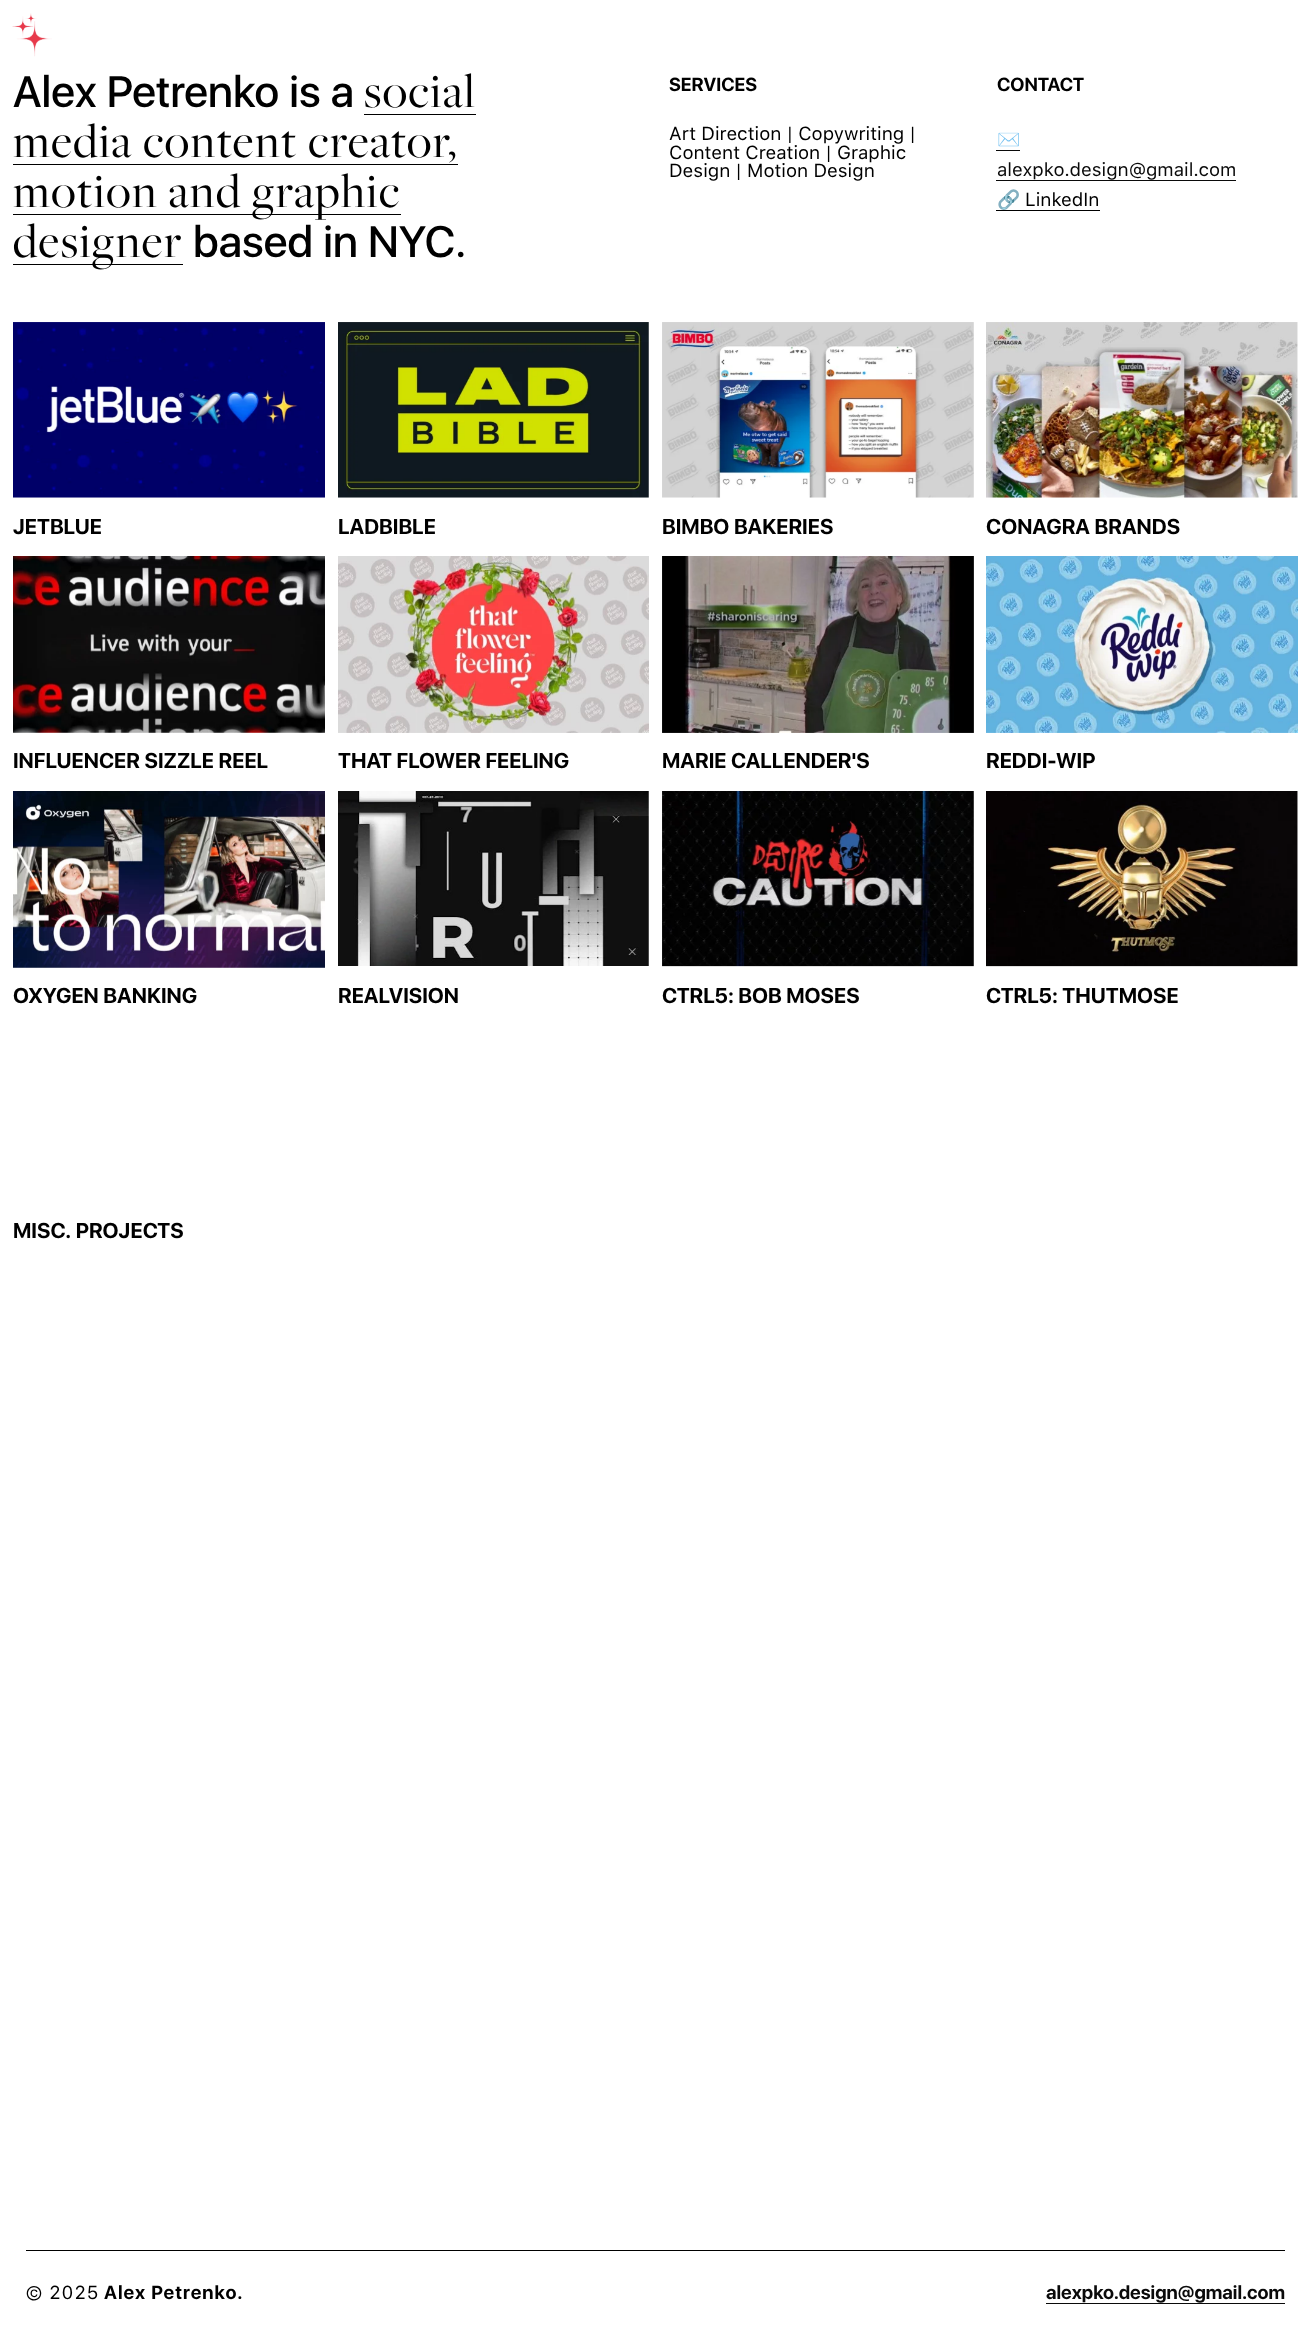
<!DOCTYPE html>
<meta charset="utf-8">
<style>body { margin: 0 } canvas { display: block }</style>
<canvas id="canvas" width="1311" height="2333"></canvas>
<script type="module">
  const canvas = document.getElementById("canvas");
  const g = canvas.getContext("2d");
  g.miterLimit = 4;
  g.fontKerning = "normal";
  function drawText(s, x, y, [font, color]) {
    g.font = font;
    g.fillStyle = color;
    g.fillText(s, x, y);
  }
  function fillBox(x, y, w, h, color) {
    g.fillStyle = color;
    g.fillRect(x, y, w, h);
  }
  async function drawPicture(src, x, y, w, h) {
    const img = new Image();
    img.src = src;
    await img.decode();
    g.drawImage(img, x, y, w, h);
  }

  const s1 = ["500 43.75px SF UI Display", "#000000"];
  const s2 = ["50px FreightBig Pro", "#000000"];
  const s3 = ["bold 18.75px SF UI Display", "#000000"];
  const s4 = ["18.75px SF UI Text", "#000000"];
  const s5 = ["18.75px Noto Color Emoji", "#0A0A0A"];
  const s6 = ["18.75px SF UI Text", "#0A0A0A"];
  const s7 = ["18.75px Noto Color Emoji", "#000000"];
  const s8 = ["bold 21.25px SF UI Display", "#000000"];
  const s9 = ["bold 18.75px SF UI Display", "#0A0A0A"];

  fillBox(0, 0, 1311, 2333, "#FFFFFF");
  await drawPicture("pic1.png", 12, 13, 40, 44);
  drawText("Alex Petrenko is a", 13, 107, s1);
  g.letterSpacing = "1.5px";
  drawText("social", 364, 107, s2);
  fillBox(364, 114, 112, 1, "#000000");
  drawText("media content creator,", 13, 157, s2);
  fillBox(13, 164, 445, 1, "#000000");
  fillBox(13, 214, 388, 1, "#000000");
  drawText("motion and graphic", 13, 207, s2);
  fillBox(13, 264, 170, 1, "#000000");
  drawText("designer", 13, 257, s2);
  g.letterSpacing = "0px";
  drawText("based in NYC.", 193, 257, s1);
  drawText("SERVICES", 669, 91, s3);
  drawText("Art Direction | Copywriting |", 669, 140, s4);
  drawText("Content Creation | Graphic", 669, 159, s4);
  drawText("Design | Motion Design", 669, 177, s4);
  drawText("CONTACT", 997, 91, s3);
  drawText("✉️", 997, 146, s5);
  fillBox(996, 150, 24, 1, "#0A0A0A");
  drawText("alexpko.design@gmail.com", 997, 176, s6);
  fillBox(996, 180, 240, 1, "#0A0A0A");
  drawText("🔗", 997, 206, s7);
  fillBox(996, 210, 104, 1, "#000000");
  drawText("LinkedIn", 1025, 206, s4);
  await drawPicture("pic2.png", 13, 322, 312, 176);
  drawText("JETBLUE", 13, 534, s8);
  await drawPicture("pic3.png", 338, 322, 311, 176);
  drawText("LADBIBLE", 338, 534, s8);
  await drawPicture("pic4.png", 662, 322, 312, 176);
  drawText("BIMBO BAKERIES", 662, 534, s8);
  await drawPicture("pic5.png", 986, 322, 312, 176);
  drawText("CONAGRA BRANDS", 986, 534, s8);
  await drawPicture("pic6.png", 13, 556, 312, 177);
  drawText("INFLUENCER SIZZLE REEL", 13, 768, s8);
  await drawPicture("pic7.png", 338, 556, 311, 177);
  drawText("THAT FLOWER FEELING", 338, 768, s8);
  await drawPicture("pic8.png", 662, 556, 312, 177);
  drawText("MARIE CALLENDER'S", 662, 768, s8);
  await drawPicture("pic9.png", 986, 556, 312, 177);
  drawText("REDDI-WIP", 986, 768, s8);
  await drawPicture("pic10.png", 13, 791, 312, 177);
  drawText("OXYGEN BANKING", 13, 1003, s8);
  await drawPicture("pic11.png", 338, 791, 311, 175);
  drawText("REALVISION", 338, 1003, s8);
  await drawPicture("pic12.png", 662, 791, 312, 176);
  drawText("CTRL5: BOB MOSES", 662, 1003, s8);
  await drawPicture("pic13.png", 986, 791, 312, 176);
  drawText("CTRL5: THUTMOSE", 986, 1003, s8);
  drawText("MISC. PROJECTS", 13, 1238, s8);
  fillBox(26, 2250, 1259, 1, "#000000");
  g.letterSpacing = "1px";
  drawText("© 2025", 26, 2299, s4);
  drawText("Alex Petrenko.", 104, 2299, s3);
  g.letterSpacing = "0px";
  drawText("alexpko.design@gmail.com", 1046, 2299, s9);
  fillBox(1046, 2303, 239, 1, "#0A0A0A");
</script>
